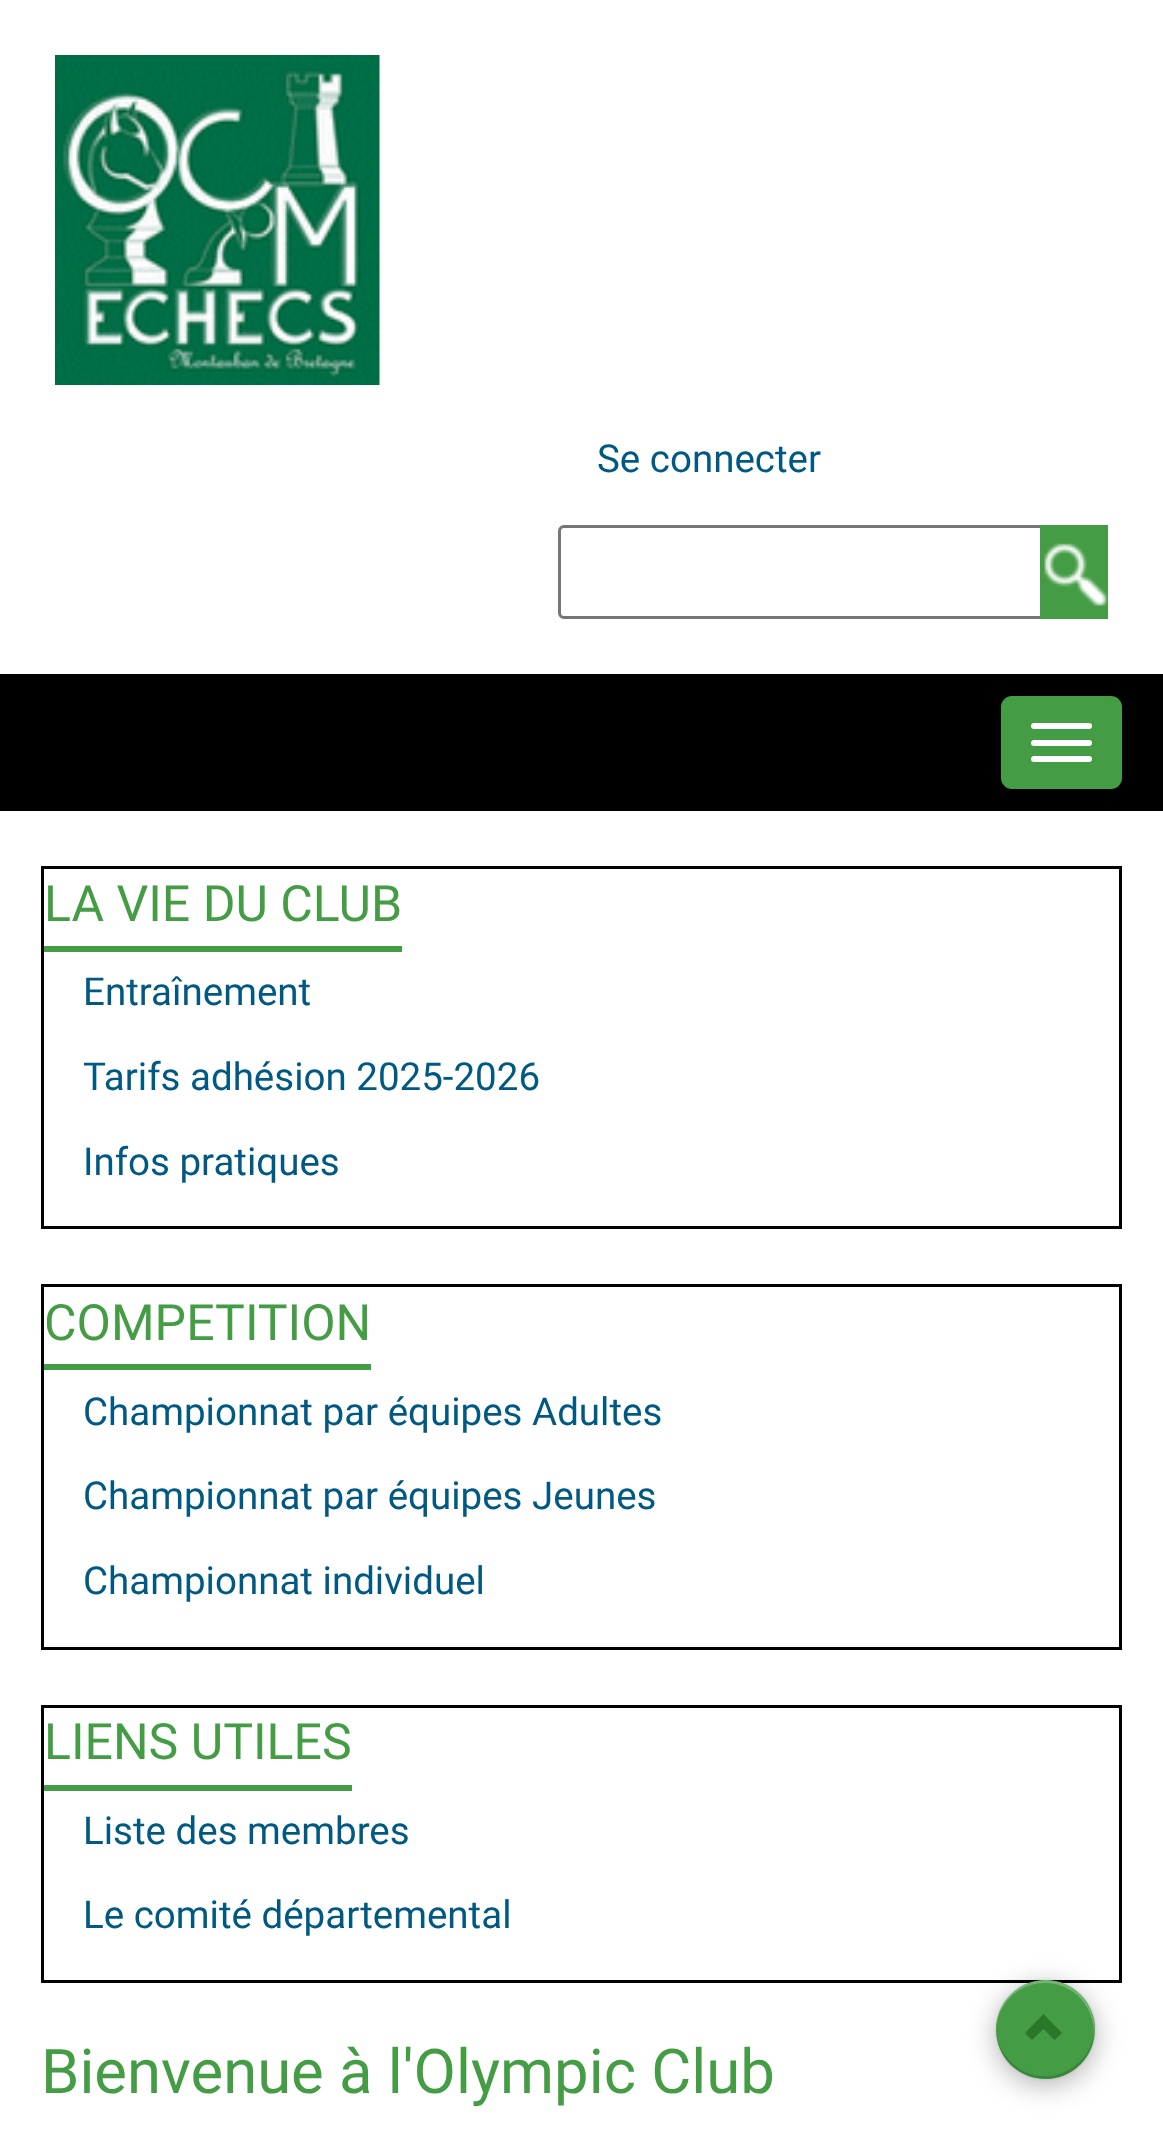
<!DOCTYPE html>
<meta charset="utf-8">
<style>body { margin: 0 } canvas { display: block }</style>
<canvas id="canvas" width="1163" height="2146"></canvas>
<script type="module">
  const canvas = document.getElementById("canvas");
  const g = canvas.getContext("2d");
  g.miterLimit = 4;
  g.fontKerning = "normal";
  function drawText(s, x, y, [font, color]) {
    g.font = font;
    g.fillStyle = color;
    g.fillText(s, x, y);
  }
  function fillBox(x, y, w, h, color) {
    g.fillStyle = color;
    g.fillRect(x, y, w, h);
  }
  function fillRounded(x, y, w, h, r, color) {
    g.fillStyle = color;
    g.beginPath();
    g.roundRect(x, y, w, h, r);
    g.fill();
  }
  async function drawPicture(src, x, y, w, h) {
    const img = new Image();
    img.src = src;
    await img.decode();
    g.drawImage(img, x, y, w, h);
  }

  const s1 = ["38.5px Roboto", "#005983"];
  const s2 = ["50px Roboto", "#449D44"];
  const s3 = ["61.6px Roboto", "#449D44"];

  fillBox(0, 0, 1163, 2146, "#FFFFFF");
  await drawPicture("pic1.png", 55, 55, 325, 330);
  drawText("Se connecter", 597, 472, s1);
  g.beginPath();
  g.roundRect(559.5, 526.5, 547, 91, 4.5);
  g.strokeStyle = "#767676";
  g.lineWidth = 3;
  g.stroke();
  fillBox(1040, 525, 68, 94, "#449D44");
  await drawPicture("pic2.png", 1044, 543, 64, 63);
  fillBox(0, 674, 1163, 137, "#000000");
  fillRounded(1001, 696, 121, 93, 11, "#449D44");
  fillRounded(1031, 723, 61, 6, 3, "#FFFFFF");
  fillRounded(1031, 740, 61, 6, 3, "#FFFFFF");
  fillRounded(1031, 756, 61, 6, 3, "#FFFFFF");
  g.strokeStyle = "#000000";
  g.strokeRect(42.5, 867.5, 1078, 360);
  fillBox(44, 946, 358, 6, "#449D44");
  drawText("LA VIE DU CLUB", 44, 921, s2);
  drawText("Entraînement", 83, 1005, s1);
  drawText("Tarifs adhésion 2025-2026", 83, 1090, s1);
  drawText("Infos pratiques", 83, 1175, s1);
  g.strokeRect(42.5, 1285.5, 1078, 363);
  fillBox(44, 1364, 327, 6, "#449D44");
  drawText("COMPETITION", 44, 1340, s2);
  drawText("Championnat par équipes Adultes", 83, 1425, s1);
  drawText("Championnat par équipes Jeunes", 83, 1509, s1);
  drawText("Championnat individuel", 83, 1594, s1);
  g.strokeRect(42.5, 1706.5, 1078, 275);
  fillBox(44, 1785, 308, 6, "#449D44");
  drawText("LIENS UTILES", 44, 1759, s2);
  drawText("Liste des membres", 83, 1844, s1);
  drawText("Le comité départemental", 83, 1928, s1);
  drawText("Bienvenue à l'Olympic Club", 41, 2093, s3);
  g.fillStyle = "rgba(0, 0, 0, 0.1)";
  g.filter = "blur(1.5px)";
  g.beginPath();
  g.roundRect(996, 1980, 99, 99, 49.5);
  g.fill();
  g.filter = "none";
  g.fillStyle = "rgba(0, 0, 0, 0.3)";
  g.filter = "blur(14px)";
  g.beginPath();
  g.roundRect(996, 1986, 99, 99, 49.5);
  g.fill();
  g.filter = "none";
  g.fillStyle = "#449D44";
  g.beginPath();
  g.arc(1045.5, 2029.5, 49.5, 0, Math.PI * 2);
  g.fill();
  g.fillStyle = "rgba(0, 0, 0, 0.15)";
  g.beginPath();
  g.moveTo(996, 2028);
  g.bezierCurveTo(996, 2042, 1001, 2055, 1010, 2065);
  g.bezierCurveTo(1017, 2071, 1026, 2076, 1036, 2078);
  g.bezierCurveTo(1074, 2086, 1105, 2047, 1092, 2012);
  g.bezierCurveTo(1107, 2060, 1048, 2098, 1011, 2062);
  g.bezierCurveTo(1002, 2053, 996, 2041, 996, 2028);
  g.closePath();
  g.fill();
  g.fillStyle = "rgba(255, 255, 255, 0.25)";
  g.beginPath();
  g.moveTo(1045, 1983);
  g.bezierCurveTo(1079, 1983, 1101, 2016, 1092, 2047);
  g.bezierCurveTo(1105, 2012, 1074, 1973, 1036, 1981);
  g.bezierCurveTo(1026, 1983, 1017, 1988, 1010, 1994);
  g.bezierCurveTo(1001, 2004, 996, 2017, 996, 2031);
  g.bezierCurveTo(997, 2004, 1018, 1983, 1045, 1983);
  g.closePath();
  g.fill();
  g.fillStyle = "#2A772A";
  g.beginPath();
  g.moveTo(1054.5, 2040);
  g.lineTo(1062, 2033);
  g.lineTo(1043.5, 2014);
  g.lineTo(1025, 2033);
  g.lineTo(1032, 2040);
  g.lineTo(1043.5, 2029);
  g.closePath();
  g.fill();
</script>
